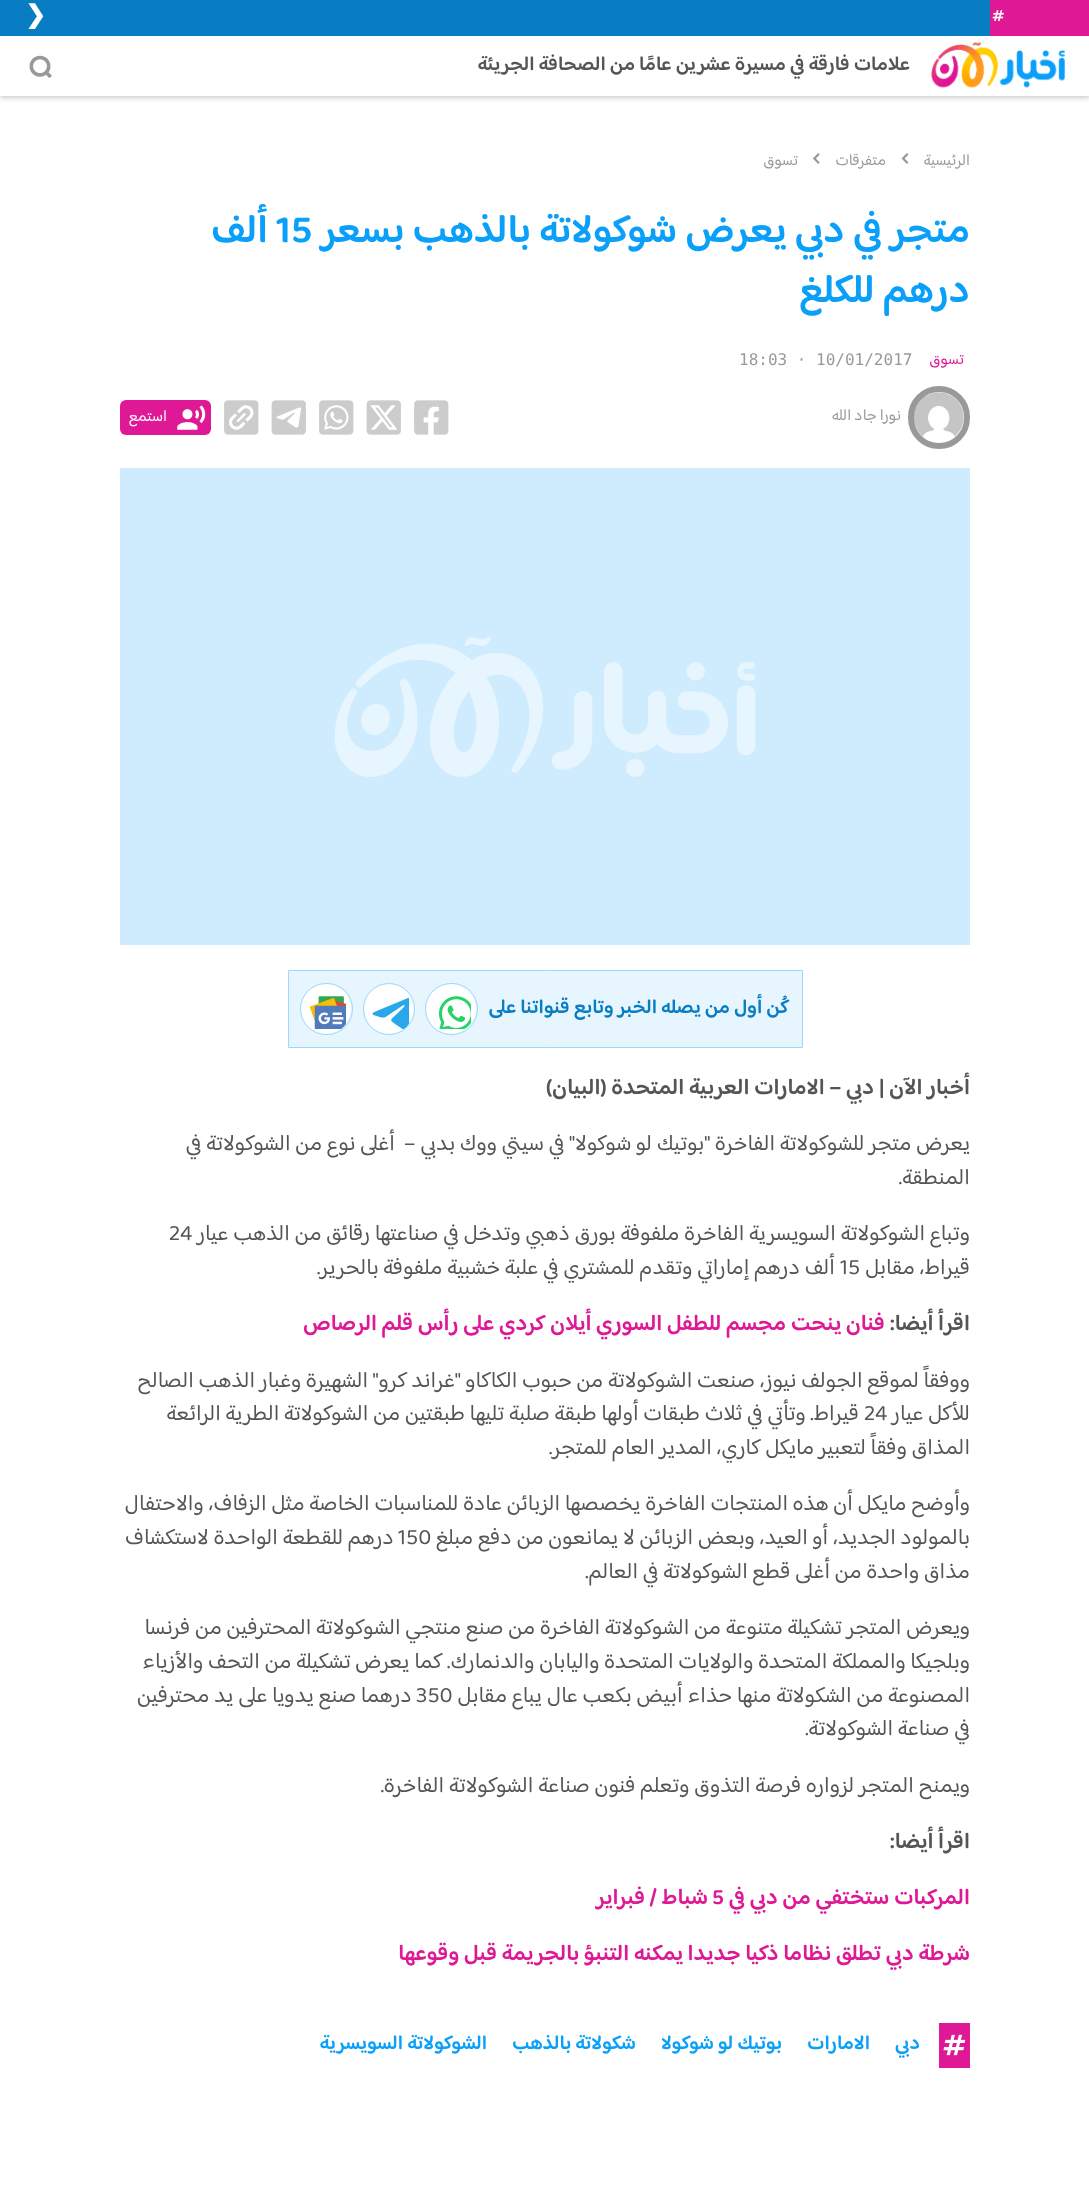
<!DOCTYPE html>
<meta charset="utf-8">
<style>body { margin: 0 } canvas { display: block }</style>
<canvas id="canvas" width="1089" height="2209"></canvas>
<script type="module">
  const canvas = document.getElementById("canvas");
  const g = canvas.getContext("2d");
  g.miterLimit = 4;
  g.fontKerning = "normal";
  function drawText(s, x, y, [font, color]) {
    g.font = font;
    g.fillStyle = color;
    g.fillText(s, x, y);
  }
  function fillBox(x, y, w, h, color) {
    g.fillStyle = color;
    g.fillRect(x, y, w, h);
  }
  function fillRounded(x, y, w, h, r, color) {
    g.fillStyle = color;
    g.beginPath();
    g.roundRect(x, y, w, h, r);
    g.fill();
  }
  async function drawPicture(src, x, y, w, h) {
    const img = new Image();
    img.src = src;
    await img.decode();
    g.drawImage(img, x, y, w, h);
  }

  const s1 = ["bold 25px DejaVu Sans", "#FFFFFF"];
  const s2 = ["600 20px 'Baloo Bhaijaan 2'", "#555555"];
  const s3 = ["16px 'Baloo Bhaijaan 2'", "#999999"];
  const s4 = ["600 40px 'Baloo Bhaijaan 2'", "#0AA0FA"];
  const s5 = ["16px 'Baloo Bhaijaan 2'", "#DF1995"];
  const s6 = ["16px DejaVu Sans Mono", "#999999"];
  const s7 = ["16px 'Baloo Bhaijaan 2'", "#FFFFFF"];
  const s8 = ["600 20px 'Baloo Bhaijaan 2'", "#087DC3"];
  const s9 = ["600 22.5px 'Baloo Bhaijaan 2'", "#555555"];
  const s10 = ["22.5px 'Baloo Bhaijaan 2'", "#555555"];
  const s11 = ["600 22.5px 'Baloo Bhaijaan 2'", "#DF1995"];
  const s12 = ["600 20px 'Baloo Bhaijaan 2'", "#0AA0FA"];

  fillBox(0, 0, 1089, 2209, "#FFFFFF");
  g.fillStyle = "rgba(0, 0, 0, 0.2)";
  g.filter = "blur(2.5px)";
  g.beginPath();
  g.rect(0, 38, 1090, 60);
  g.fill();
  g.filter = "none";
  fillBox(0, 0, 990, 36, "#087DC3");
  fillBox(990, 0, 99, 36, "#DF1995");
  await drawPicture("pic1.png", 992, 10, 12, 11);
  drawText("❯", 25, 23, s1);
  fillBox(0, 36, 1089, 60, "#FFFFFF");
  await drawPicture("pic2.png", 931, 42, 134, 46);
  g.direction = "rtl";
  drawText("علامات فارقة في مسيرة عشرين عامًا من الصحافة الجريئة", 910, 70, s2);
  await drawPicture("pic3.png", 29, 55, 23, 24);
  drawText("الرئيسية", 970, 165, s3);
  await drawPicture("pic4.png", 901, 153, 8, 11);
  drawText("متفرقات", 886, 165, s3);
  await drawPicture("pic5.png", 812, 153, 8, 11);
  drawText("تسوق", 798, 165, s3);
  drawText("متجر في دبي يعرض شوكولاتة بالذهب بسعر", 970, 242, s4);
  g.direction = "ltr";
  drawText("15", 276, 242, s4);
  g.direction = "rtl";
  drawText("ألف", 268, 242, s4);
  drawText("درهم للكلغ", 970, 302, s4);
  drawText("تسوق", 964, 364, s5);
  g.direction = "ltr";
  drawText("18:03 · 10/01/2017", 739, 365, s6);
  await drawPicture("pic6.png", 913, 392, 51, 45);
  g.beginPath();
  g.roundRect(911, 389, 56, 57, 28);
  g.strokeStyle = "rgba(0, 0, 0, 0.4)";
  g.lineWidth = 6;
  g.stroke();
  g.direction = "rtl";
  drawText("نورا جاد الله", 901, 420, s3);
  await drawPicture("pic7.png", 414, 400, 35, 35);
  await drawPicture("pic8.png", 366, 400, 35, 35);
  await drawPicture("pic9.png", 319, 400, 35, 35);
  await drawPicture("pic10.png", 271, 400, 35, 35);
  await drawPicture("pic11.png", 224, 400, 35, 35);
  fillRounded(120, 400, 91, 35, 6, "#DF1996");
  await drawPicture("pic12.png", 177, 405, 29, 25);
  drawText("استمع", 167, 421, s7);
  fillBox(120, 468, 850, 477, "#CEECFE");
  await drawPicture("pic13.png", 334, 636, 422, 141);
  g.fillStyle = "#E6F5FE";
  g.beginPath();
  g.rect(288.5, 970.5, 514, 77);
  g.fill();
  g.strokeStyle = "#9DD9FD";
  g.lineWidth = 1;
  g.stroke();
  drawText("كُن أول من يصله الخبر وتابع قنواتنا على", 789, 1013, s8);
  g.fillStyle = "#FFFFFF";
  g.beginPath();
  g.arc(451, 1009, 25, 0, Math.PI * 2);
  g.fill();
  await drawPicture("pic14.png", 438, 996, 33, 33);
  g.beginPath();
  g.roundRect(425.5, 983.5, 52, 51, 25.5);
  g.stroke();
  g.beginPath();
  g.arc(389, 1009, 25, 0, Math.PI * 2);
  g.fill();
  await drawPicture("pic15.png", 372, 997, 37, 32);
  g.beginPath();
  g.arc(389, 1009, 25.5, 0, Math.PI * 2);
  g.stroke();
  g.beginPath();
  g.arc(326, 1009, 25, 0, Math.PI * 2);
  g.fill();
  await drawPicture("pic16.png", 309, 996, 37, 33);
  g.beginPath();
  g.roundRect(300.5, 983.5, 52, 51, 25.5);
  g.stroke();
  drawText("أخبار الآن | دبي – الامارات العربية المتحدة (البيان)", 970, 1094, s9);
  g.wordSpacing = "-0.1px";
  drawText("يعرض متجر للشوكولاتة الفاخرة \"بوتيك لو شوكولا\" في سيتي ووك بدبي –  أغلى نوع من الشوكولاتة في", 970, 1150, s10);
  g.wordSpacing = "0px";
  drawText("المنطقة.", 970, 1184, s10);
  drawText("وتباع الشوكولاتة السويسرية الفاخرة ملفوفة بورق ذهبي وتدخل في صناعتها رقائق من الذهب عيار", 970, 1240, s10);
  g.direction = "ltr";
  drawText("24", 169, 1240, s10);
  g.direction = "rtl";
  drawText("قيراط، مقابل", 970, 1274, s10);
  g.direction = "ltr";
  drawText("15", 840, 1274, s10);
  g.direction = "rtl";
  drawText("ألف درهم إماراتي وتقدم للمشتري في علبة خشبية ملفوفة بالحرير.", 835, 1274, s10);
  drawText("اقرأ أيضا:", 970, 1330, s9);
  drawText("فنان ينحت مجسم للطفل السوري أيلان كردي على رأس قلم الرصاص", 885, 1330, s11);
  g.wordSpacing = "-0.1px";
  drawText("ووفقاً لموقع الجولف نيوز، صنعت الشوكولاتة من حبوب الكاكاو \"غراند كرو\" الشهيرة وغبار الذهب الصالح", 970, 1387, s10);
  g.wordSpacing = "0px";
  drawText("للأكل عيار", 970, 1420, s10);
  g.direction = "ltr";
  drawText("24", 864, 1420, s10);
  g.direction = "rtl";
  drawText("قيراط. وتأتي في ثلاث طبقات أولها طبقة صلبة تليها طبقتين من الشوكولاتة الطرية الرائعة", 859, 1420, s10);
  drawText("المذاق وفقاً لتعبير مايكل كاري، المدير العام للمتجر.", 970, 1454, s10);
  drawText("وأوضح مايكل أن هذه المنتجات الفاخرة يخصصها الزبائن عادة للمناسبات الخاصة مثل الزفاف، والاحتفال", 970, 1510, s10);
  drawText("بالمولود الجديد، أو العيد، وبعض الزبائن لا يمانعون من دفع مبلغ", 970, 1544, s10);
  g.direction = "ltr";
  drawText("150", 398, 1544, s10);
  g.direction = "rtl";
  drawText("درهم للقطعة الواحدة لاستكشاف", 394, 1544, s10);
  drawText("مذاق واحدة من أغلى قطع الشوكولاتة في العالم.", 970, 1578, s10);
  drawText("ويعرض المتجر تشكيلة متنوعة من الشوكولاتة الفاخرة من صنع منتجي الشوكولاتة المحترفين من فرنسا", 970, 1634, s10);
  drawText("وبلجيكا والمملكة المتحدة والولايات المتحدة واليابان والدنمارك. كما يعرض تشكيلة من التحف والأزياء", 970, 1668, s10);
  drawText("المصنوعة من الشكولاتة منها حذاء أبيض بكعب عال يباع مقابل", 970, 1702, s10);
  g.direction = "ltr";
  drawText("350", 416, 1702, s10);
  g.direction = "rtl";
  drawText("درهما صنع يدويا على يد محترفين", 412, 1702, s10);
  drawText("في صناعة الشوكولاتة.", 970, 1735, s10);
  drawText("ويمنح المتجر لزواره فرصة التذوق وتعلم فنون صناعة الشوكولاتة الفاخرة.", 970, 1792, s10);
  drawText("اقرأ أيضا:", 970, 1848, s9);
  drawText("المركبات ستختفي من دبي في", 970, 1904, s11);
  g.direction = "ltr";
  drawText("5", 712, 1904, s11);
  g.direction = "rtl";
  drawText("شباط / فبراير", 708, 1904, s11);
  drawText("شرطة دبي تطلق نظاما ذكيا جديدا يمكنه التنبؤ بالجريمة قبل وقوعها", 970, 1960, s11);
  fillBox(939, 2023, 31, 45, "#DF1995");
  await drawPicture("pic17.png", 943, 2034, 23, 22);
  drawText("دبي", 920, 2049, s12);
  drawText("الامارات", 870, 2049, s12);
  drawText("بوتيك لو شوكولا", 782, 2049, s12);
  drawText("شكولاتة بالذهب", 636, 2049, s12);
  drawText("الشوكولاتة السويسرية", 487, 2049, s12);
</script>
